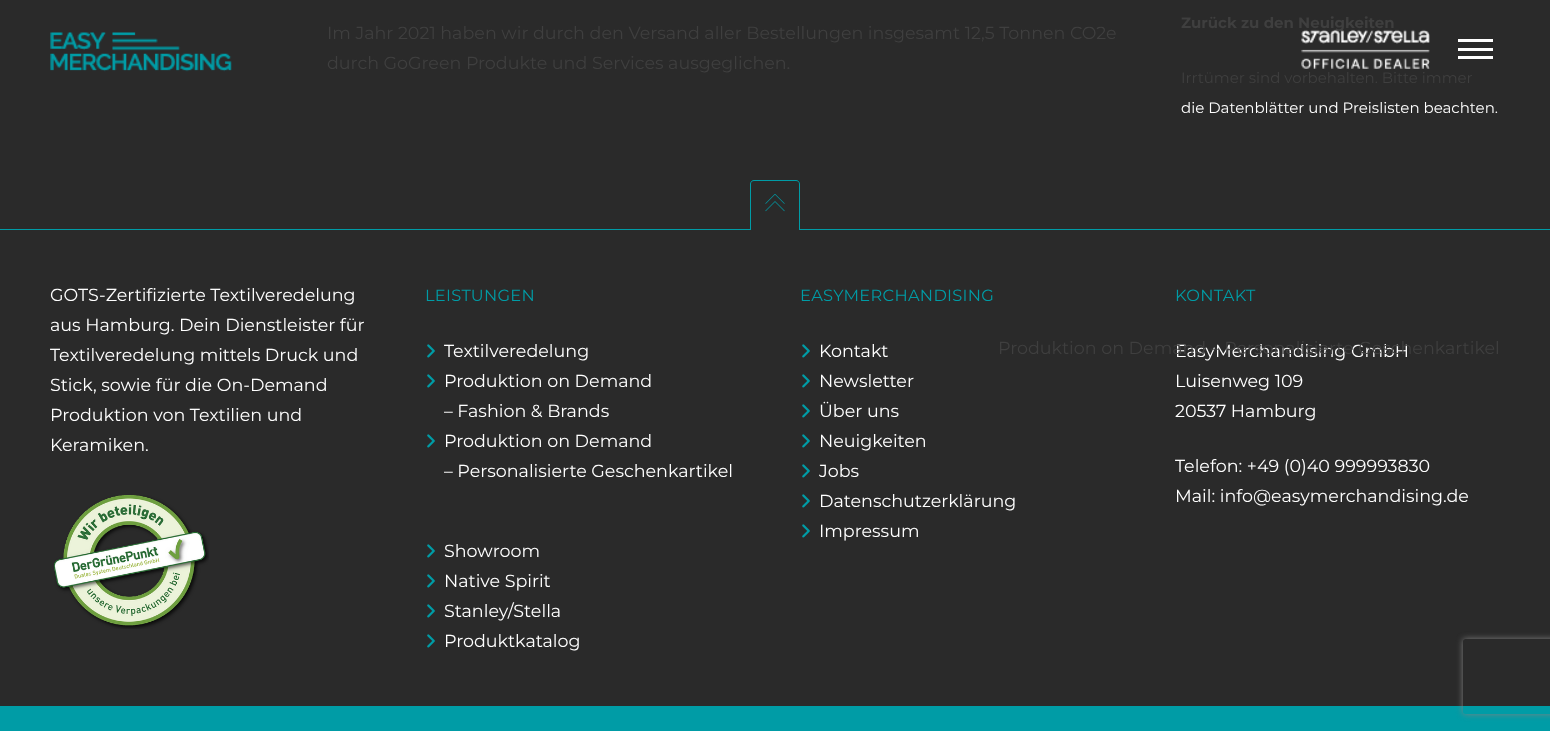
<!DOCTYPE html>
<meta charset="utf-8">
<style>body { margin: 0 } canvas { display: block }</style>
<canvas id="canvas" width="1550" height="731"></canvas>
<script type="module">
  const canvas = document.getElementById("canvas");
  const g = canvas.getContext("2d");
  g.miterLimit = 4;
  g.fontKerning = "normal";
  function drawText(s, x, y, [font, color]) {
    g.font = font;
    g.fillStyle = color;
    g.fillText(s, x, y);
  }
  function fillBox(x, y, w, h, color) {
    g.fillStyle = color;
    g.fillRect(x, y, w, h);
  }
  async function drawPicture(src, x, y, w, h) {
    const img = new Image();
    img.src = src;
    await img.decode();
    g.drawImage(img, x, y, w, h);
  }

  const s1 = ["17.5px Montserrat", "#3F3F3F"];
  const s2 = ["bold 15px Montserrat", "#3F3F3F"];
  const s3 = ["15px Montserrat", "#3F3F3F"];
  const s4 = ["15px Montserrat", "#FFFFFF"];
  const s5 = ["17.5px Montserrat", "#FFFFFF"];
  const s6 = ["16.25px Montserrat", "#009CA6"];

  fillBox(0, 0, 1550, 731, "#2A2A2A");
  drawText("Im Jahr 2021 haben wir durch den Versand aller Bestellungen insgesamt 12,5 Tonnen CO2e", 327, 39, s1);
  drawText("durch GoGreen Produkte und Services ausgeglichen.", 327, 69, s1);
  drawText("Zurück zu den Neuigkeiten", 1181, 28, s2);
  drawText("Irrtümer sind vorbehalten. Bitte immer", 1181, 83, s3);
  drawText("die Datenblätter und Preislisten beachten.", 1181, 113, s4);
  await drawPicture("pic1.png", 50, 32, 182, 40);
  await drawPicture("pic2.png", 1301, 29, 129, 40);
  fillBox(1458, 48, 35, 3, "#FFFFFF");
  fillBox(1458, 39, 35, 3, "#FFFFFF");
  fillBox(1458, 56, 35, 3, "#FFFFFF");
  fillBox(0, 229, 1550, 1, "#009CA6");
  g.fillStyle = "#2A2A2A";
  g.beginPath();
  g.roundRect(750, 180, 50, 50, [4, 4, 0, 0]);
  g.fill();
  g.fillStyle = "#009CA6";
  g.beginPath();
  g.moveTo(754, 180);
  g.lineTo(796, 180);
  g.bezierCurveTo(798, 180, 800, 182, 800, 184);
  g.lineTo(800, 230);
  g.lineTo(750, 230);
  g.lineTo(750, 184);
  g.bezierCurveTo(750, 182, 752, 180, 754, 180);
  g.closePath();
  g.moveTo(754, 181);
  g.lineTo(796, 181);
  g.bezierCurveTo(798, 181, 799, 182, 799, 184);
  g.lineTo(799, 230);
  g.lineTo(751, 230);
  g.lineTo(751, 184);
  g.bezierCurveTo(751, 182, 752, 181, 754, 181);
  g.closePath();
  g.fill("evenodd");
  await drawPicture("pic3.png", 765, 194, 20, 18);
  drawText("GOTS-Zertifizierte Textilveredelung", 50, 301, s5);
  drawText("aus Hamburg. Dein Dienstleister für", 50, 331, s5);
  drawText("Textilveredelung mittels Druck und", 50, 361, s5);
  drawText("Stick, sowie für die On-Demand", 50, 391, s5);
  drawText("Produktion von Textilien und", 50, 421, s5);
  drawText("Keramiken.", 50, 451, s5);
  await drawPicture("pic4.png", 54, 495, 155, 134);
  g.letterSpacing = "0.3px";
  drawText("LEISTUNGEN", 425, 301, s6);
  await drawPicture("pic5.png", 427, 344, 8, 14);
  g.letterSpacing = "0px";
  drawText("Textilveredelung", 444, 357, s5);
  await drawPicture("pic5.png", 427, 374, 8, 14);
  drawText("Produktion on Demand", 444, 387, s5);
  drawText("– Fashion & Brands", 444, 417, s5);
  await drawPicture("pic5.png", 427, 434, 8, 14);
  drawText("Produktion on Demand", 444, 447, s5);
  drawText("– Personalisierte Geschenkartikel", 444, 477, s5);
  await drawPicture("pic5.png", 427, 544, 8, 14);
  drawText("Showroom", 444, 557, s5);
  await drawPicture("pic5.png", 427, 574, 8, 14);
  drawText("Native Spirit", 444, 587, s5);
  await drawPicture("pic5.png", 427, 604, 8, 14);
  drawText("Stanley/Stella", 444, 617, s5);
  await drawPicture("pic5.png", 427, 634, 8, 14);
  drawText("Produktkatalog", 444, 647, s5);
  g.letterSpacing = "0.3px";
  drawText("EASYMERCHANDISING", 800, 301, s6);
  await drawPicture("pic5.png", 802, 344, 8, 14);
  g.letterSpacing = "0px";
  drawText("Kontakt", 819, 357, s5);
  await drawPicture("pic5.png", 802, 374, 8, 14);
  drawText("Newsletter", 819, 387, s5);
  await drawPicture("pic5.png", 802, 404, 8, 14);
  drawText("Über uns", 819, 417, s5);
  await drawPicture("pic5.png", 802, 434, 8, 14);
  drawText("Neuigkeiten", 819, 447, s5);
  await drawPicture("pic5.png", 802, 464, 8, 14);
  drawText("Jobs", 819, 477, s5);
  await drawPicture("pic5.png", 802, 494, 8, 14);
  drawText("Datenschutzerklärung", 819, 507, s5);
  await drawPicture("pic5.png", 802, 524, 8, 14);
  drawText("Impressum", 819, 537, s5);
  g.letterSpacing = "0.3px";
  drawText("KONTAKT", 1175, 301, s6);
  g.letterSpacing = "0px";
  drawText("EasyMerchandising GmbH", 1175, 357, s5);
  drawText("Luisenweg 109", 1175, 387, s5);
  drawText("20537 Hamburg", 1175, 417, s5);
  drawText("Telefon: +49 (0)40 999993830", 1175, 472, s5);
  drawText("Mail: info@easymerchandising.de", 1175, 502, s5);
  fillBox(0, 706, 1550, 25, "#009CA6");
  drawText("Produktion on Demand – Personalisierte Geschenkartikel", 998, 354, s1);
  g.save();
  g.beginPath();
  g.moveTo(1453, 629);
  g.lineTo(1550, 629);
  g.lineTo(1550, 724);
  g.lineTo(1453, 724);
  g.closePath();
  g.moveTo(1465.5, 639);
  g.lineTo(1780.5, 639);
  g.bezierCurveTo(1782, 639, 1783, 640, 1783, 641.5);
  g.lineTo(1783, 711.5);
  g.bezierCurveTo(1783, 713, 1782, 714, 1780.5, 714);
  g.lineTo(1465.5, 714);
  g.bezierCurveTo(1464, 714, 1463, 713, 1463, 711.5);
  g.lineTo(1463, 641.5);
  g.bezierCurveTo(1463, 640, 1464, 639, 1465.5, 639);
  g.closePath();
  g.clip("evenodd");
  g.fillStyle = "#808080";
  g.filter = "blur(3px)";
  g.beginPath();
  g.roundRect(1463, 639, 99, 75, 2.5);
  g.fill();
  g.filter = "none";
  g.restore();
</script>
